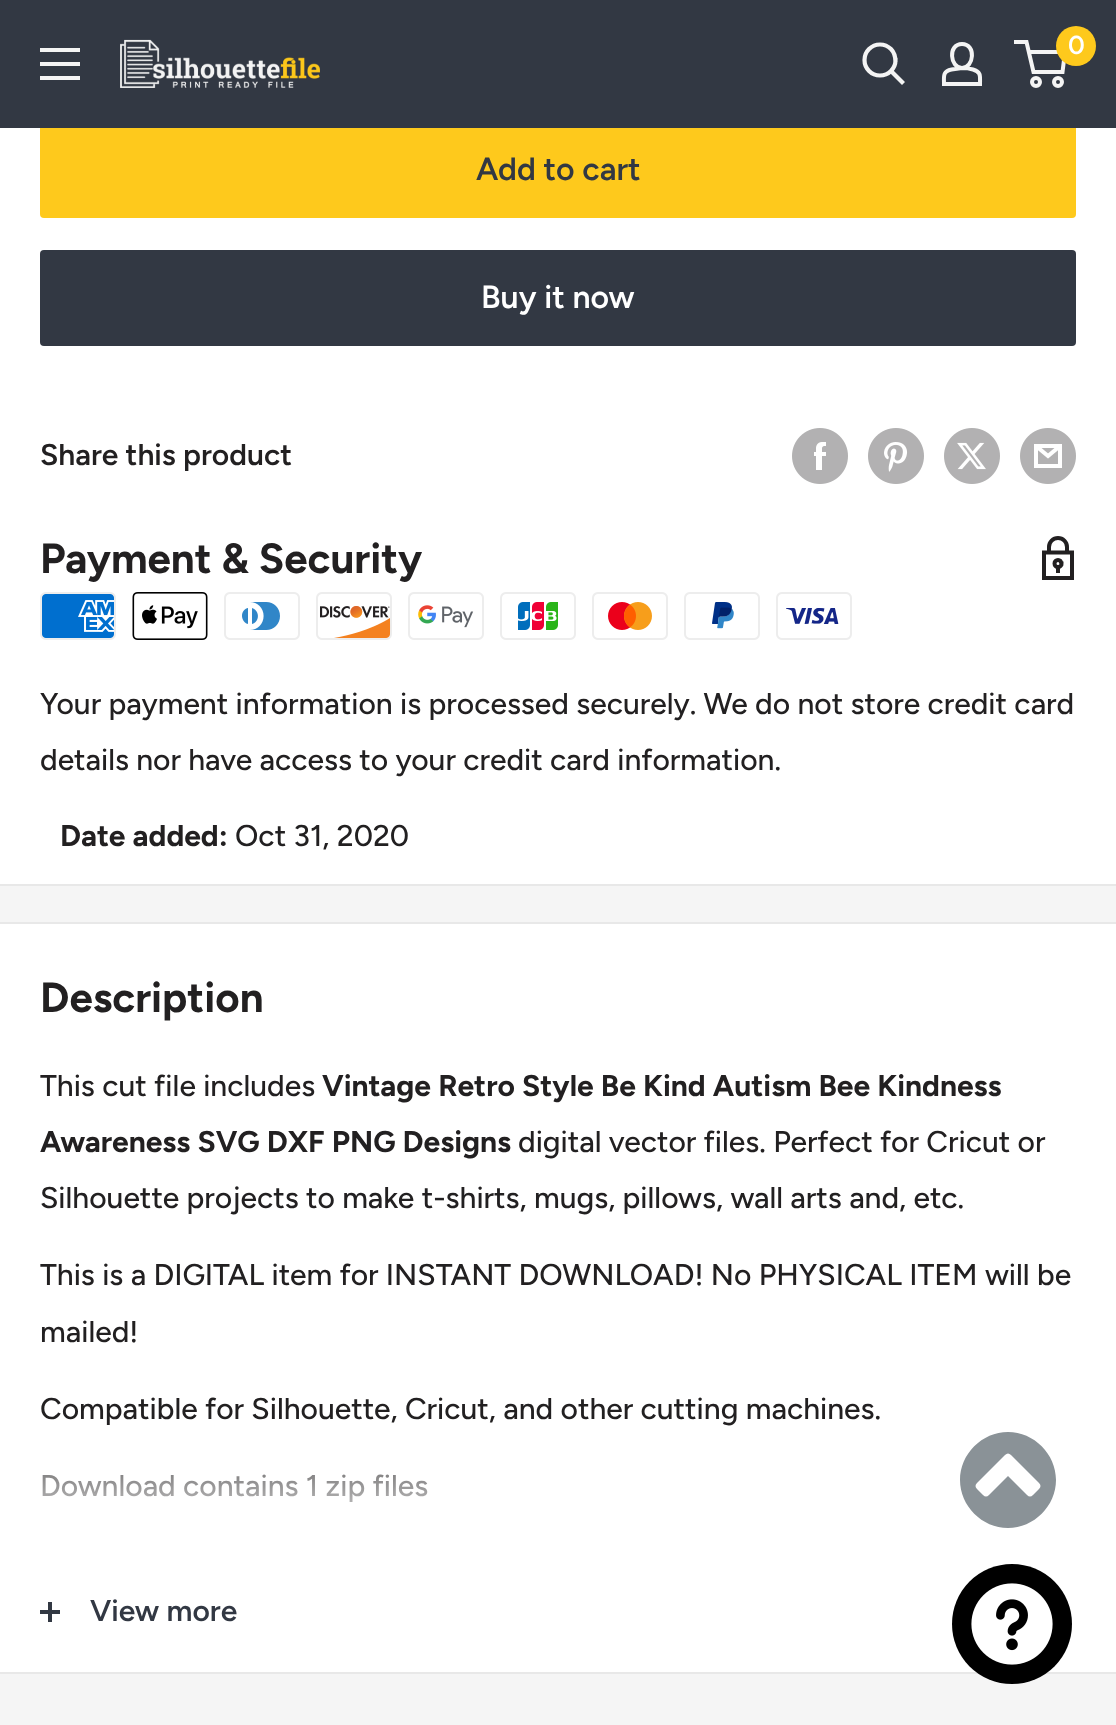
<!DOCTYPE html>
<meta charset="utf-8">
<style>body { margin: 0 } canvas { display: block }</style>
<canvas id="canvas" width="1116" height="1725"></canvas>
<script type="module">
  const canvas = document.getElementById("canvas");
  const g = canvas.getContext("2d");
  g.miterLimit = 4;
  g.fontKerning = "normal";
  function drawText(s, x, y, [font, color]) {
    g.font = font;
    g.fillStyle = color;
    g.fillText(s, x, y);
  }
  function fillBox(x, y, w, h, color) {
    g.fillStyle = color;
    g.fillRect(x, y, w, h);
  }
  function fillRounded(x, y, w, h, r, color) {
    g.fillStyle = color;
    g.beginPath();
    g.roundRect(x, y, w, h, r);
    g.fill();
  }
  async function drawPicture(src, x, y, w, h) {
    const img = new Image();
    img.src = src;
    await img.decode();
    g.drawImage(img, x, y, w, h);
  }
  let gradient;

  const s1 = ["600 26px Figtree", "#FFFFFF"];
  const s2 = ["600 32px Figtree", "#323843"];
  const s3 = ["600 32px Figtree", "#FFFFFF"];
  const s4 = ["600 30px Figtree", "#222021"];
  const s5 = ["bold 42px Figtree", "#222021"];
  const s6 = ["500 30px Figtree", "#222021"];
  const s7 = ["bold 30px Figtree", "#222021"];
  const s8 = ["600 30px Figtree", "#323843"];

  fillBox(0, 0, 1116, 1725, "#F5F5F5");
  fillBox(0, 128, 1116, 756, "#FFFFFF");
  fillRounded(40, 122, 1036, 96, 4, "#FEC91C");
  fillBox(0, 0, 1116, 128, "#323843");
  g.fillStyle = "#F4F4F4";
  g.beginPath();
  g.moveTo(40, 76);
  g.lineTo(80, 76);
  g.lineTo(80, 80);
  g.lineTo(40, 80);
  g.closePath();
  g.moveTo(40, 48);
  g.lineTo(80, 48);
  g.lineTo(80, 52);
  g.lineTo(40, 52);
  g.closePath();
  g.moveTo(40, 62);
  g.lineTo(80, 62);
  g.lineTo(80, 66);
  g.lineTo(40, 66);
  g.closePath();
  g.fill("evenodd");
  await drawPicture("pic1.png", 120, 39, 200, 49);
  g.beginPath();
  g.moveTo(902, 82);
  g.lineTo(891.5, 71.5);
  g.strokeStyle = "#F4F4F4";
  g.lineWidth = 4.2;
  g.lineCap = "square";
  g.stroke();
  g.beginPath();
  g.arc(880, 60, 15.5, 0, Math.PI * 2);
  g.stroke();
  g.beginPath();
  g.moveTo(962, 68);
  g.bezierCurveTo(966, 68, 969.5, 68.5, 973, 69.5);
  g.bezierCurveTo(981.5, 72, 980, 76.5, 980, 84);
  g.lineTo(944, 84);
  g.bezierCurveTo(944, 76, 942.5, 71.5, 951.5, 69.5);
  g.closePath();
  g.moveTo(962, 68);
  g.bezierCurveTo(950, 68, 947.5, 44, 962, 44);
  g.bezierCurveTo(976.5, 44, 974, 68, 962, 68);
  g.closePath();
  g.lineWidth = 4;
  g.lineCap = "butt";
  g.stroke();
  g.beginPath();
  g.arc(1036, 82, 4, 0, Math.PI * 2);
  g.stroke();
  g.beginPath();
  g.arc(1058, 82, 4, 0, Math.PI * 2);
  g.stroke();
  g.beginPath();
  g.moveTo(1028.5, 52);
  g.lineTo(1065, 52);
  g.lineTo(1062.5, 72);
  g.lineTo(1033.5, 72);
  g.lineTo(1026.5, 42);
  g.lineTo(1014, 42);
  g.stroke();
  g.fillStyle = "#FEC91C";
  g.beginPath();
  g.arc(1076, 46, 20, 0, Math.PI * 2);
  g.fill();
  drawText("0", 1068, 54, s1);
  fillBox(0, 884, 1116, 2, "#E8E8E8");
  drawText("Add to cart", 476, 180, s2);
  fillRounded(40, 250, 1036, 96, 4, "#323843");
  drawText("Buy it now", 481, 308, s3);
  drawText("Share this product", 40, 465, s4);
  await drawPicture("pic2.png", 792, 428, 56, 56);
  await drawPicture("pic3.png", 868, 428, 56, 56);
  await drawPicture("pic4.png", 944, 428, 56, 56);
  await drawPicture("pic5.png", 1020, 428, 56, 56);
  drawText("Payment & Security", 40, 573, s5);
  g.beginPath();
  g.moveTo(1058, 538);
  g.bezierCurveTo(1053, 538, 1049, 542, 1049, 547);
  g.lineTo(1049, 552.5);
  g.lineTo(1067, 552.5);
  g.lineTo(1067, 547);
  g.bezierCurveTo(1067, 542, 1063, 538, 1058, 538);
  g.closePath();
  g.moveTo(1044, 552.5);
  g.lineTo(1072, 552.5);
  g.lineTo(1072, 578);
  g.lineTo(1044, 578);
  g.closePath();
  g.strokeStyle = "#222021";
  g.lineCap = "square";
  g.stroke();
  g.beginPath();
  g.arc(1058, 563.5, 3.5, 0, Math.PI * 2);
  g.stroke();
  g.beginPath();
  g.moveTo(1058, 567);
  g.lineTo(1058, 571);
  g.stroke();
  await drawPicture("pic6.png", 40, 592, 76, 48);
  await drawPicture("pic7.png", 132, 592, 76, 48);
  await drawPicture("pic8.png", 224, 592, 76, 48);
  await drawPicture("pic9.png", 316, 592, 76, 48);
  await drawPicture("pic10.png", 408, 592, 76, 48);
  await drawPicture("pic11.png", 500, 592, 76, 48);
  await drawPicture("pic12.png", 592, 592, 76, 48);
  await drawPicture("pic13.png", 684, 592, 76, 48);
  await drawPicture("pic14.png", 776, 592, 76, 48);
  drawText("Your payment information is processed securely. We do not store credit card", 40, 714, s6);
  drawText("details nor have access to your credit card information.", 40, 770, s6);
  drawText("Date added:", 60, 846, s7);
  drawText("Oct 31, 2020", 235, 846, s6);
  fillBox(0, 924, 1116, 627, "#FFFFFF");
  fillBox(0, 922, 1116, 2, "#E8E8E8");
  fillBox(0, 1672, 1116, 2, "#E8E8E8");
  drawText("Description", 40, 1012, s5);
  drawText("This cut file includes", 40, 1096, s6);
  drawText("Vintage Retro Style Be Kind Autism Bee Kindness", 322, 1096, s7);
  drawText("Awareness SVG DXF PNG Designs", 40, 1152, s7);
  drawText("digital vector files. Perfect for Cricut or", 518, 1152, s6);
  drawText("Silhouette projects to make t-shirts, mugs, pillows, wall arts and, etc.", 40, 1208, s6);
  drawText("This is a DIGITAL item for INSTANT DOWNLOAD! No PHYSICAL ITEM will be", 40, 1285, s6);
  drawText("mailed!", 40, 1342, s6);
  drawText("Compatible for Silhouette, Cricut, and other cutting machines.", 40, 1419, s6);
  drawText("Download contains 1 zip files", 40, 1496, s6);
  fillBox(0, 1552, 1116, 120, "#FFFFFF");
  gradient = g.createLinearGradient(558, 1452, 558, 1552);
  gradient.addColorStop(0, "rgba(255, 255, 255, 0)");
  gradient.addColorStop(0.15, "rgba(255, 255, 255, 0.4)");
  gradient.addColorStop(1, "#FFFFFF");
  g.fillStyle = gradient;
  g.fillRect(0, 1474, 1116, 78);
  fillBox(48, 1602, 4, 20, "#323843");
  fillBox(40, 1610, 20, 4, "#323843");
  drawText("View more", 90, 1621, s8);
  g.fillStyle = "#8A9297";
  g.beginPath();
  g.moveTo(1033, 1495);
  g.bezierCurveTo(1031, 1497, 1029, 1497, 1027, 1495);
  g.lineTo(1008, 1476);
  g.lineTo(989, 1495);
  g.bezierCurveTo(987, 1497, 985, 1497, 983, 1495);
  g.lineTo(977, 1489);
  g.bezierCurveTo(975, 1487, 975, 1485, 977, 1483);
  g.lineTo(1005, 1455);
  g.bezierCurveTo(1007, 1453, 1009, 1453, 1011, 1455);
  g.lineTo(1039, 1483);
  g.bezierCurveTo(1041, 1485, 1041, 1487, 1039, 1489);
  g.closePath();
  g.moveTo(1056, 1480);
  g.bezierCurveTo(1056, 1454, 1034, 1432, 1008, 1432);
  g.bezierCurveTo(982, 1432, 960, 1454, 960, 1480);
  g.bezierCurveTo(960, 1506, 982, 1528, 1008, 1528);
  g.bezierCurveTo(1034, 1528, 1056, 1506, 1056, 1480);
  g.closePath();
  g.fill();
  g.fillStyle = "#000000";
  g.beginPath();
  g.arc(1012, 1624, 60, 0, Math.PI * 2);
  g.fill();
  await drawPicture("pic15.png", 971, 1583, 82, 82);
</script>
